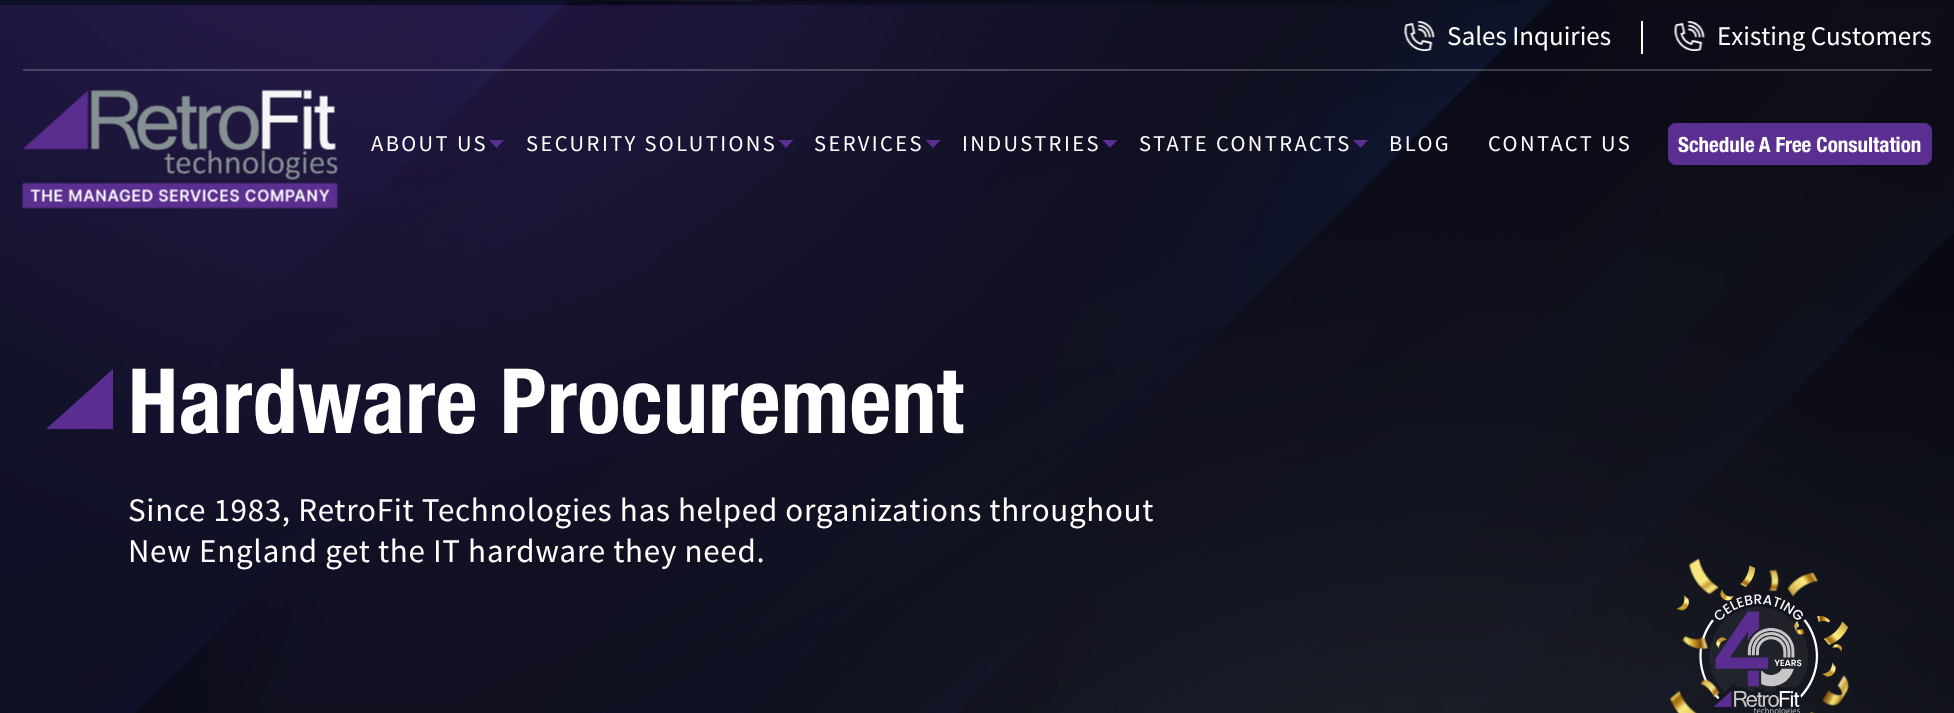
<!DOCTYPE html>
<meta charset="utf-8">
<style>body { margin: 0 } canvas { display: block }</style>
<canvas id="canvas" width="1954" height="713"></canvas>
<script type="module">
  const canvas = document.getElementById("canvas");
  const g = canvas.getContext("2d");
  g.miterLimit = 4;
  g.fontKerning = "normal";
  function drawText(s, x, y, [font, color]) {
    g.font = font;
    g.fillStyle = color;
    g.fillText(s, x, y);
  }
  function fillBox(x, y, w, h, color) {
    g.fillStyle = color;
    g.fillRect(x, y, w, h);
  }
  function fillRounded(x, y, w, h, r, color) {
    g.fillStyle = color;
    g.beginPath();
    g.roundRect(x, y, w, h, r);
    g.fill();
  }
  async function drawPicture(src, x, y, w, h) {
    const img = new Image();
    img.src = src;
    await img.decode();
    g.drawImage(img, x, y, w, h);
  }

  const s1 = ["27px Source Sans Pro", "#FFFFFF"];
  const s2 = ["22.5px Source Sans Pro", "#FFFFFF"];
  const s3 = ["bold 21px Helvetica Neue", "#FFFFFF"];
  const s4 = ["bold 90px Helvetica Neue", "#FFFFFF"];
  const s5 = ["33px Source Sans Pro", "#FFFFFF"];

  fillBox(0, 0, 1954, 713, "#FFFFFF");
  await drawPicture("pic4.png", 0, 0, 1954, 713);
  fillBox(23, 69, 1909, 2, "rgba(255, 255, 255, 0.2)");
  await drawPicture("pic1.png", 1404, 21, 31, 30);
  drawText("Sales Inquiries", 1447, 45, s1);
  fillBox(1641, 21, 2, 33, "#FFFFFF");
  await drawPicture("pic2.png", 1674, 21, 31, 30);
  drawText("Existing Customers", 1717, 45, s1);
  await drawPicture("pic3.png", 22, 89, 316, 120);
  g.letterSpacing = "2.4px";
  drawText("ABOUT US", 371, 151, s2);
  g.fillStyle = "#5B2E91";
  g.beginPath();
  g.moveTo(489, 140);
  g.lineTo(504, 140);
  g.lineTo(496.5, 148);
  g.closePath();
  g.fill();
  drawText("SECURITY SOLUTIONS", 526, 151, s2);
  g.fillStyle = "#5B2E91";
  g.beginPath();
  g.moveTo(778.5, 140);
  g.lineTo(793.5, 140);
  g.lineTo(786, 148);
  g.closePath();
  g.fill();
  drawText("SERVICES", 814, 151, s2);
  g.fillStyle = "#5B2E91";
  g.beginPath();
  g.moveTo(925.5, 140);
  g.lineTo(940.5, 140);
  g.lineTo(933, 148);
  g.closePath();
  g.fill();
  drawText("INDUSTRIES", 962, 151, s2);
  g.fillStyle = "#5B2E91";
  g.beginPath();
  g.moveTo(1102.5, 140);
  g.lineTo(1117.5, 140);
  g.lineTo(1110, 148);
  g.closePath();
  g.fill();
  drawText("STATE CONTRACTS", 1139, 151, s2);
  g.fillStyle = "#5B2E91";
  g.beginPath();
  g.moveTo(1353, 140);
  g.lineTo(1368, 140);
  g.lineTo(1360.5, 148);
  g.closePath();
  g.fill();
  drawText("BLOG", 1389, 151, s2);
  drawText("CONTACT US", 1488, 151, s2);
  fillRounded(1668, 123, 264, 42, 8, "#5B2E91");
  g.letterSpacing = "0px";
  drawText("Schedule A Free Consultation", 1678, 152, s3);
  g.fillStyle = "#5B2D90";
  g.beginPath();
  g.moveTo(46, 429);
  g.lineTo(113, 429);
  g.lineTo(113, 369);
  g.closePath();
  g.fill();
  g.letterSpacing = "0.4px";
  drawText("Hardware Procurement", 128, 433, s4);
  g.letterSpacing = "0.72px";
  drawText("Since 1983, RetroFit Technologies has helped organizations throughout", 128, 521, s5);
  drawText("New England get the IT hardware they need.", 128, 562, s5);
  await drawPicture("pic5.png", 1669, 558, 181, 155);
</script>
